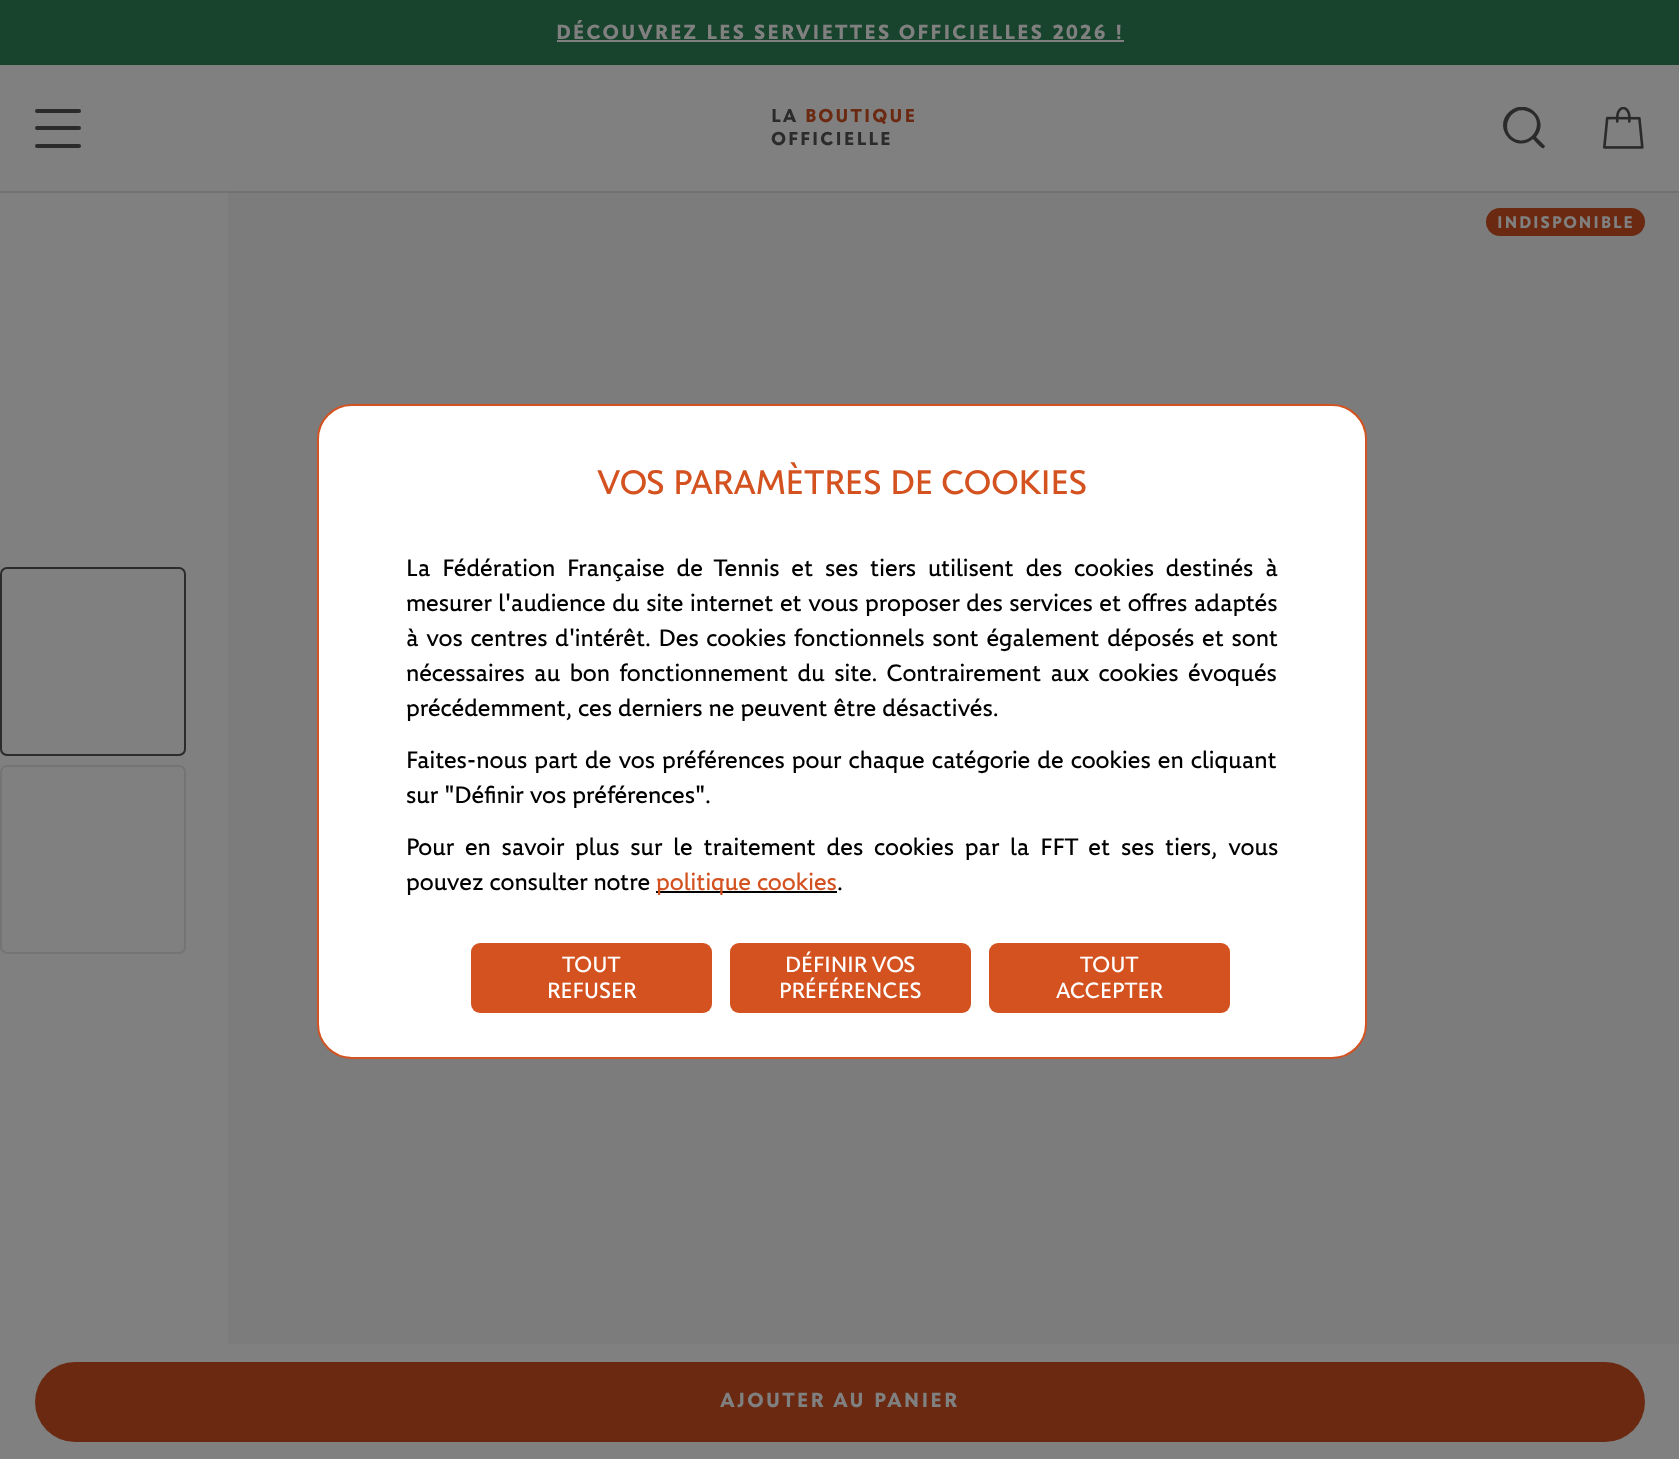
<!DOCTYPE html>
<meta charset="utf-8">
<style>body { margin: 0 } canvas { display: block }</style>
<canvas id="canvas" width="1679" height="1459"></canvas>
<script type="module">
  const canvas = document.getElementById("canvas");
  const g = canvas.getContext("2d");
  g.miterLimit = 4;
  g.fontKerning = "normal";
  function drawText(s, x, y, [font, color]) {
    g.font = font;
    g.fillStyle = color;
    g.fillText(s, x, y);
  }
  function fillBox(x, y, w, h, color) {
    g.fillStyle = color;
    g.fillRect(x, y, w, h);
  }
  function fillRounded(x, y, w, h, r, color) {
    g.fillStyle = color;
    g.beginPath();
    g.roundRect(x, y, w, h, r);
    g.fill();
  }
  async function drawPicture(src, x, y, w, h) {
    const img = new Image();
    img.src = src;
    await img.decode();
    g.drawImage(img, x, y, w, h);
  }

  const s1 = ["bold 21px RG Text", "#808080"];
  const s2 = ["bold 19.25px RG Text", "#2B2B2B"];
  const s3 = ["bold 19.25px RG Text", "#6A2910"];
  const s4 = ["bold 17.5px RG Text", "#808080"];
  const s5 = ["35px RG Text", "#D35220"];
  const s6 = ["24.5px RG Text", "#000000"];
  const s7 = ["24.5px RG Text", "#D35220"];
  const s8 = ["22.75px RG Text", "#FFFFFF"];

  fillBox(0, 0, 1679, 1459, "#808080");
  fillBox(0, 0, 1679, 65, "#18432C");
  g.letterSpacing = "2.1px";
  drawText("DÉCOUVREZ LES SERVIETTES OFFICIELLES 2026 !", 556, 39, s1);
  fillBox(557, 40, 567, 2, "#808080");
  fillRounded(35, 109, 46, 4, 2, "#2B2B2B");
  fillRounded(35, 126, 46, 4, 2, "#2B2B2B");
  fillRounded(35, 144, 46, 4, 2, "#2B2B2B");
  g.letterSpacing = "2px";
  drawText("LA", 771, 122, s2);
  drawText("BOUTIQUE", 805, 122, s3);
  drawText("OFFICIELLE", 771, 145, s2);
  g.save();
  g.beginPath();
  g.rect(1503, 107, 42, 42);
  g.clip();
  g.beginPath();
  g.moveTo(1545, 146);
  g.lineTo(1536, 137);
  g.bezierCurveTo(1551, 119, 1526, 96, 1509, 112);
  g.bezierCurveTo(1492, 128, 1515, 154, 1533, 139);
  g.bezierCurveTo(1535, 141, 1542, 150, 1544, 148);
  g.closePath();
  g.moveTo(1515, 139);
  g.bezierCurveTo(1498, 130, 1511, 103, 1529, 112);
  g.bezierCurveTo(1546, 120, 1533, 147, 1515, 139);
  g.closePath();
  g.fill();
  g.restore();
  await drawPicture("pic1.png", 1603, 107, 41, 42);
  fillBox(0, 191, 228, 2, "#737373");
  g.beginPath();
  g.roundRect(1, 568, 184, 187, 6);
  g.strokeStyle = "#2B2B2B";
  g.lineWidth = 2;
  g.stroke();
  g.beginPath();
  g.roundRect(1, 766, 184, 187, 6);
  g.strokeStyle = "#747474";
  g.stroke();
  fillBox(228, 193, 1451, 1151, "#7C7C7C");
  fillBox(228, 191, 1451, 2, "#707070");
  fillRounded(1486, 208, 159, 28, 14, "#6A2910");
  g.letterSpacing = "1.75px";
  drawText("INDISPONIBLE", 1497, 228, s4);
  fillRounded(35, 1362, 1610, 80, 40, "#6A2910");
  g.letterSpacing = "2.1px";
  drawText("AJOUTER AU PANIER", 720, 1407, s1);
  g.fillStyle = "#FFFFFF";
  g.beginPath();
  g.roundRect(318, 405, 1048, 653, 34);
  g.fill();
  g.strokeStyle = "#D35220";
  g.stroke();
  g.letterSpacing = "0px";
  drawText("VOS PARAMÈTRES DE COOKIES", 597, 494, s5);
  g.wordSpacing = "5.75px";
  drawText("La Fédération Française de Tennis et ses tiers utilisent des cookies destinés à", 406, 576, s6);
  g.wordSpacing = "0.4px";
  drawText("mesurer l'audience du site internet et vous proposer des services et offres adaptés", 406, 611, s6);
  g.wordSpacing = "1.5px";
  drawText("à vos centres d'intérêt. Des cookies fonctionnels sont également déposés et sont", 406, 646, s6);
  g.wordSpacing = "3.25px";
  drawText("nécessaires au bon fonctionnement du site. Contrairement aux cookies évoqués", 406, 681, s6);
  g.wordSpacing = "0px";
  drawText("précédemment, ces derniers ne peuvent être désactivés.", 406, 716, s6);
  g.wordSpacing = "1px";
  drawText("Faites-nous part de vos préférences pour chaque catégorie de cookies en cliquant", 406, 768, s6);
  g.wordSpacing = "0px";
  drawText("sur \"Définir vos préférences\".", 406, 803, s6);
  g.wordSpacing = "4.75px";
  drawText("Pour en savoir plus sur le traitement des cookies par la FFT et ses tiers, vous", 406, 855, s6);
  g.wordSpacing = "0px";
  drawText("pouvez consulter notre", 406, 890, s6);
  fillBox(656, 891, 181, 2, "#000000");
  drawText("politique cookies", 656, 890, s7);
  drawText(".", 837, 890, s6);
  fillRounded(471, 943, 241, 70, 9, "#D35220");
  drawText("TOUT", 562, 972, s8);
  drawText("REFUSER", 547, 998, s8);
  fillRounded(730, 943, 241, 70, 9, "#D35220");
  drawText("DÉFINIR VOS", 785, 972, s8);
  drawText("PRÉFÉRENCES", 779, 998, s8);
  fillRounded(989, 943, 241, 70, 9, "#D35220");
  drawText("TOUT", 1080, 972, s8);
  drawText("ACCEPTER", 1056, 998, s8);
</script>
